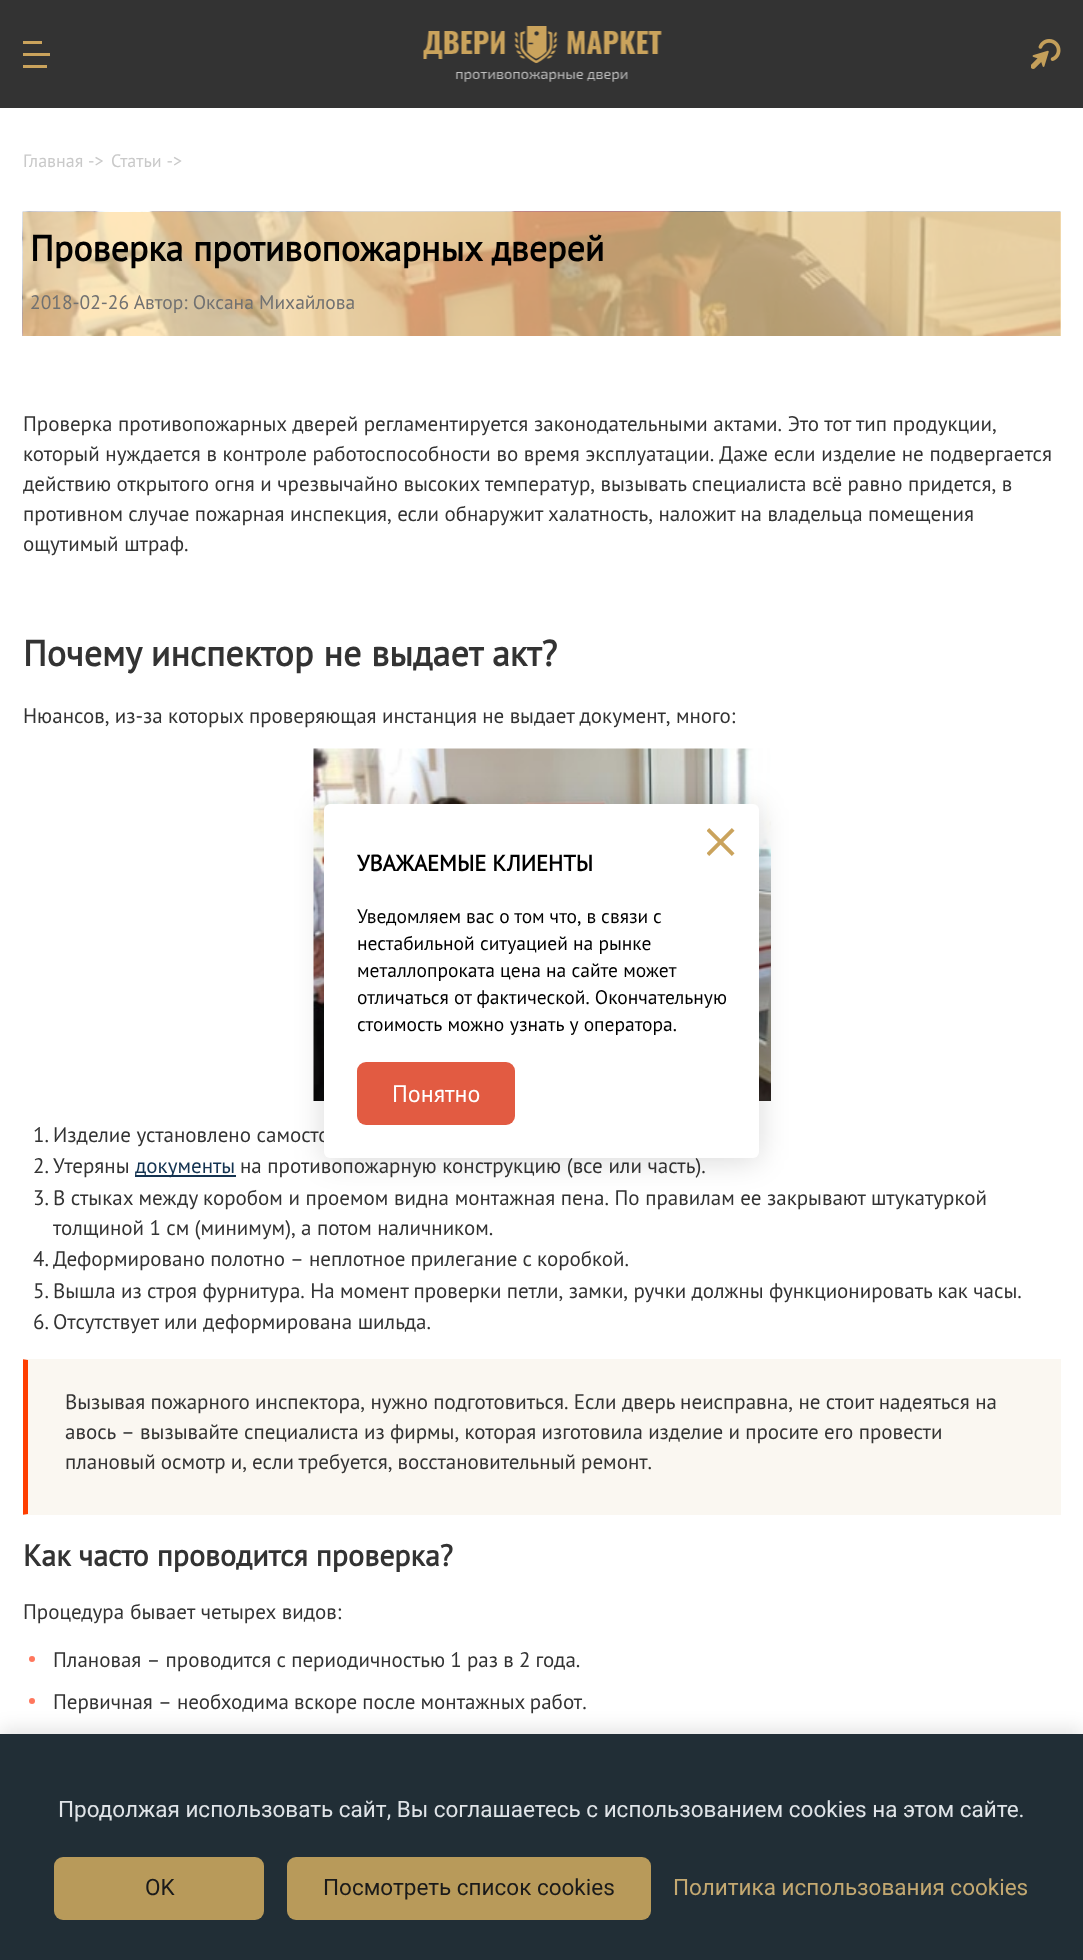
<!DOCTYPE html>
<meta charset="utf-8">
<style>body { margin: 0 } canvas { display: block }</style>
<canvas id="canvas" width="1083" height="1960"></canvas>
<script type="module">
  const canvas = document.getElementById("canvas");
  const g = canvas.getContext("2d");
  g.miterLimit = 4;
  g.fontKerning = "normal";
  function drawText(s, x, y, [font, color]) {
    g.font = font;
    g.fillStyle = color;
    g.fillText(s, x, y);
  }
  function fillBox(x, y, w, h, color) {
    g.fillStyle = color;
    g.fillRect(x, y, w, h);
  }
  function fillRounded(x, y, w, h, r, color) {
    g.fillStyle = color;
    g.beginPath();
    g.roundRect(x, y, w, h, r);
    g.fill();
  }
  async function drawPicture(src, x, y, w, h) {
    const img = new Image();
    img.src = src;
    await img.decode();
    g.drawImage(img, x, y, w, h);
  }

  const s1 = ["18px PT Sans", "#C9C9C9"];
  const s2 = ["bold 36px PT Sans", "#000000"];
  const s3 = ["19.5px PT Sans", "#717171"];
  const s4 = ["21px PT Sans", "#333333"];
  const s5 = ["bold 36px PT Sans", "#333333"];
  const s6 = ["21px PT Sans", "#143351"];
  const s7 = ["bold 30px PT Sans", "#333333"];
  const s8 = ["bold 22.5px PT Sans", "#000000"];
  const s9 = ["19.5px PT Sans", "#000000"];
  const s10 = ["24px PT Sans", "#FFFFFF"];
  const s11 = ["22.5px Roboto", "#E0E4E8"];
  const s12 = ["22.5px Roboto", "#1A1A1A"];
  const s13 = ["22.5px Roboto", "#C4A971"];

  fillBox(0, 0, 1083, 1960, "#FFFFFF");
  fillBox(1060, 212, 1, 124, "#FFE7BA");
  drawText("Главная ->", 23, 167, s1);
  drawText("Статьи ->", 111, 167, s1);
  await drawPicture("pic1.png", 22, 211, 1039, 125);
  drawText("Проверка противопожарных дверей", 30, 261, s2);
  drawText("2018-02-26 Автор: Оксана Михайлова", 30, 309, s3);
  drawText("Проверка противопожарных дверей регламентируется законодательными актами. Это тот тип продукции,", 23, 431, s4);
  drawText("который нуждается в контроле работоспособности во время эксплуатации. Даже если изделие не подвергается", 23, 461, s4);
  g.save();
  g.beginPath();
  g.rect(23, 408, 1038, 222);
  g.clip();
  g.wordSpacing = "-0.1px";
  drawText("действию открытого огня и чрезвычайно высоких температур, вызывать специалиста всё равно придется, в", 23, 491, s4);
  g.restore();
  g.wordSpacing = "-0.25px";
  drawText("противном случае пожарная инспекция, если обнаружит халатность, наложит на владельца помещения", 23, 521, s4);
  g.wordSpacing = "0px";
  drawText("ощутимый штраф.", 23, 551, s4);
  g.wordSpacing = "0.5px";
  drawText("Почему инспектор не выдает акт?", 23, 666, s5);
  g.wordSpacing = "-0.25px";
  drawText("Нюансов, из-за которых проверяющая инстанция не выдает документ, много:", 23, 723, s4);
  await drawPicture("pic2.png", 313, 748, 458, 353);
  g.wordSpacing = "0px";
  drawText("1.", 33, 1142, s4);
  drawText("Изделие установлено самосто", 53, 1142, s4);
  drawText("2.", 33, 1173, s4);
  drawText("Утеряны", 53, 1173, s4);
  fillBox(135, 1175, 101, 2, "#143351");
  drawText("документы", 135, 1173, s6);
  drawText("на противопожарную конструкцию (все или часть).", 240, 1173, s4);
  drawText("3.", 33, 1205, s4);
  drawText("В стыках между коробом и проемом видна монтажная пена. По правилам ее закрывают штукатуркой", 53, 1205, s4);
  g.wordSpacing = "-0.25px";
  drawText("толщиной 1 см (минимум), а потом наличником.", 53, 1235, s4);
  g.wordSpacing = "0px";
  drawText("4.", 33, 1266, s4);
  g.wordSpacing = "-0.5px";
  drawText("Деформировано полотно – неплотное прилегание с коробкой.", 53, 1266, s4);
  g.wordSpacing = "0px";
  drawText("5.", 33, 1298, s4);
  g.wordSpacing = "-0.25px";
  drawText("Вышла из строя фурнитура. На момент проверки петли, замки, ручки должны функционировать как часы.", 53, 1298, s4);
  g.wordSpacing = "0px";
  drawText("6.", 33, 1329, s4);
  drawText("Отсутствует или деформирована шильда.", 53, 1329, s4);
  fillBox(23, 1359, 1038, 156, "#FAF7F1");
  g.save();
  g.beginPath();
  g.rect(23, 630, 1038, 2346);
  g.clip();
  g.fillStyle = "#FF3E00";
  g.beginPath();
  g.moveTo(22, 1515);
  g.lineTo(22, 1359);
  g.lineTo(28, 1360);
  g.lineTo(28, 1514);
  g.closePath();
  g.fill();
  g.restore();
  g.wordSpacing = "-0.25px";
  drawText("Вызывая пожарного инспектора, нужно подготовиться. Если дверь неисправна, не стоит надеяться на", 65, 1409, s4);
  g.wordSpacing = "-0.3px";
  drawText("авось – вызывайте специалиста из фирмы, которая изготовила изделие и просите его провести", 65, 1439, s4);
  g.wordSpacing = "-0.5px";
  drawText("плановый осмотр и, если требуется, восстановительный ремонт.", 65, 1469, s4);
  g.wordSpacing = "0px";
  drawText("Как часто проводится проверка?", 23, 1566, s7);
  g.wordSpacing = "0.5px";
  drawText("Процедура бывает четырех видов:", 23, 1619, s4);
  g.fillStyle = "#FF775D";
  g.beginPath();
  g.arc(32, 1659, 3, 0, Math.PI * 2);
  g.fill();
  g.wordSpacing = "-0.4px";
  drawText("Плановая – проводится с периодичностью 1 раз в 2 года.", 53, 1667, s4);
  g.fillStyle = "#FF775D";
  g.beginPath();
  g.arc(32, 1701, 3, 0, Math.PI * 2);
  g.fill();
  g.wordSpacing = "-0.5px";
  drawText("Первичная – необходима вскоре после монтажных работ.", 53, 1709, s4);
  fillBox(0, 0, 1083, 108, "#333333");
  fillBox(23, 41, 19, 3, "#CAA35C");
  fillBox(23, 53, 27, 3, "#CAA35C");
  fillBox(23, 65, 24, 3, "#CAA35C");
  await drawPicture("pic3.png", 423, 26, 239, 56);
  await drawPicture("pic4.png", 1031, 39, 30, 30);
  g.fillStyle = "rgba(0, 0, 0, 0.15)";
  g.filter = "blur(15px)";
  g.beginPath();
  g.roundRect(324, 807, 435, 354, 6);
  g.fill();
  g.filter = "none";
  fillRounded(324, 804, 435, 354, 6, "#FFFFFF");
  await drawPicture("pic5.png", 707, 828, 28, 28);
  g.wordSpacing = "0px";
  drawText("УВАЖАЕМЫЕ КЛИЕНТЫ", 357, 871, s8);
  g.wordSpacing = "-0.25px";
  drawText("Уведомляем вас о том что, в связи с", 357, 923, s9);
  g.wordSpacing = "0px";
  drawText("нестабильной ситуацией на рынке", 357, 950, s9);
  drawText("металлопроката цена на сайте может", 357, 977, s9);
  drawText("отличаться от фактической. Окончательную", 357, 1004, s9);
  g.wordSpacing = "0.5px";
  drawText("стоимость можно узнать у оператора.", 357, 1031, s9);
  fillRounded(357, 1062, 158, 63, 9, "#E25B42");
  g.wordSpacing = "0px";
  drawText("Понятно", 392, 1102, s10);
  g.fillStyle = "rgba(0, 0, 0, 0.1)";
  g.filter = "blur(9px)";
  g.beginPath();
  g.rect(0, 1728, 1083, 227);
  g.fill();
  g.filter = "none";
  fillBox(0, 1734, 1083, 226, "#212E36");
  drawText("Продолжая использовать сайт, Вы соглашаетесь с использованием cookies на этом сайте.", 58, 1817, s11);
  fillRounded(54, 1857, 210, 63, 9, "#B89A5A");
  drawText("OK", 145, 1895, s12);
  fillRounded(287, 1857, 364, 63, 9, "#B89A5A");
  drawText("Посмотреть список cookies", 323, 1895, s12);
  drawText("Политика использования cookies", 673, 1895, s13);
</script>
